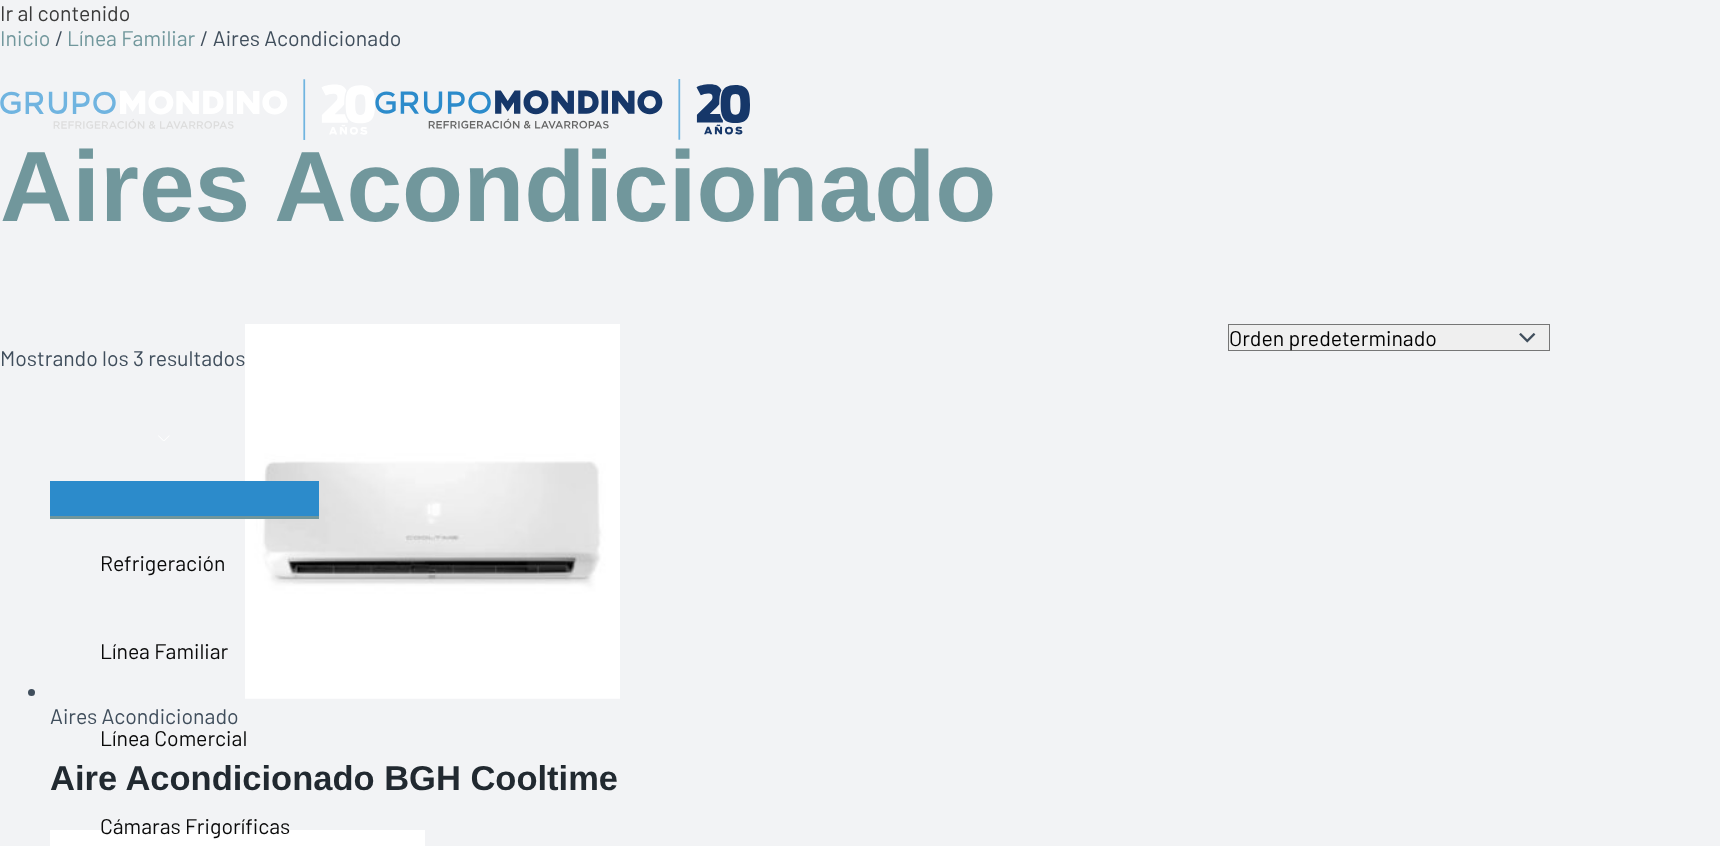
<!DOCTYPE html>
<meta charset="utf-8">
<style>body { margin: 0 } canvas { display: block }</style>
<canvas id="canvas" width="1720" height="846"></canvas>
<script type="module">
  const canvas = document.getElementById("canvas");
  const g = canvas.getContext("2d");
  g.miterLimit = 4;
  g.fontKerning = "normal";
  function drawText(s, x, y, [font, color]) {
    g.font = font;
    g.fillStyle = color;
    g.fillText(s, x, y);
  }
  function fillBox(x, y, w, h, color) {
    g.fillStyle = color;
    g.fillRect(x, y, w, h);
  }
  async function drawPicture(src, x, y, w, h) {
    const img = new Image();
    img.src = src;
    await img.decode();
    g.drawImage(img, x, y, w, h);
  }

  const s1 = ["21.25px Barlow", "#3A3A3A"];
  const s2 = ["21.25px Barlow", "#71979C"];
  const s3 = ["21.25px Barlow", "#404E5C"];
  const s4 = ["bold 100px Liberation Sans", "#71979C"];
  const s5 = ["21.25px Barlow", "#000000"];
  const s6 = ["bold 34.5px Liberation Sans", "#212930"];
  const s7 = ["21.25px Barlow", "#0A0A0A"];

  fillBox(0, 0, 1720, 846, "#F2F3F5");
  drawText("Ir al contenido", 0, 21, s1);
  drawText("Inicio", 0, 46, s2);
  drawText("/", 55, 46, s3);
  drawText("Línea Familiar", 67, 46, s2);
  drawText("/ Aires Acondicionado", 200, 46, s3);
  drawText("Aires Acondicionado", 0, 221, s4);
  fillBox(1229, 325, 320, 25, "#EFEFEF");
  await drawPicture("pic1.png", 1519, 333, 17, 10);
  g.strokeStyle = "#767676";
  g.strokeRect(1228.5, 324.5, 321, 26);
  drawText("Orden predeterminado", 1229, 346, s5);
  drawText("Mostrando los 3 resultados", 0, 366, s3);
  g.beginPath();
  g.arc(31.5, 692.5, 3.5, 0, Math.PI * 2);
  g.fill();
  await drawPicture("pic2.png", 245, 324, 375, 375);
  drawText("Aires Acondicionado", 50, 724, s3);
  drawText("Aire Acondicionado BGH Cooltime", 50, 790, s6);
  fillBox(50, 830, 375, 16, "#FFFFFF");
  await drawPicture("pic3.png", 0, 79, 375, 61);
  await drawPicture("pic4.png", 375, 79, 375, 61);
  await drawPicture("pic5.png", 158, 435, 12, 6);
  fillBox(50, 481, 269, 35, "#2C8BCB");
  fillBox(50, 516, 269, 3, "#71979C");
  drawText("Refrigeración", 100, 571, s7);
  drawText("Línea Familiar", 100, 659, s7);
  drawText("Línea Comercial", 100, 746, s7);
  drawText("Cámaras Frigoríficas", 100, 834, s7);
</script>
